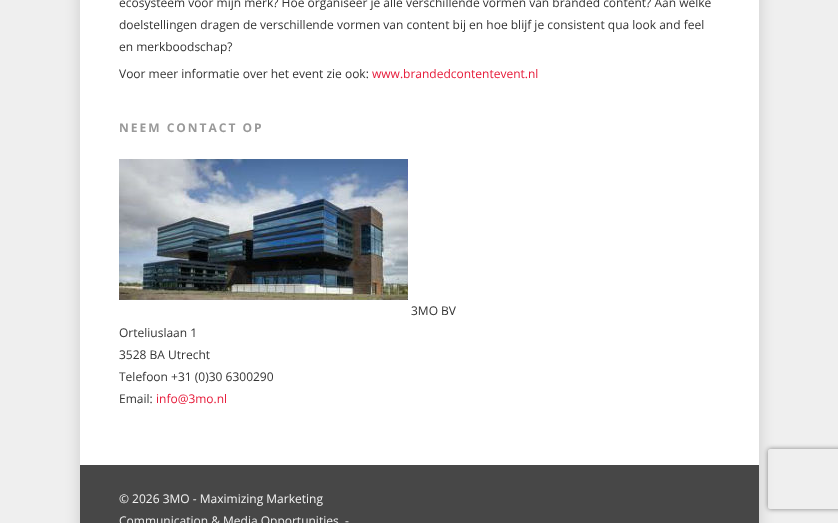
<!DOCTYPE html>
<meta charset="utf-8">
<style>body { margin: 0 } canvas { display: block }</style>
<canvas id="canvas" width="838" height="523"></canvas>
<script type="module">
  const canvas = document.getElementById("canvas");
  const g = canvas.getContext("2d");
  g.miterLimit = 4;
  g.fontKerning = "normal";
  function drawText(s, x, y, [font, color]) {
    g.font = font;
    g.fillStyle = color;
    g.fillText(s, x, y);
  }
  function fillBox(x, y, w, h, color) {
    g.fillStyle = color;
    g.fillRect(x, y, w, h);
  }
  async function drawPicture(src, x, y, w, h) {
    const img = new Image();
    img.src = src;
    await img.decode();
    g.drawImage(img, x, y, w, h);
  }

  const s1 = ["12px Open Sans", "#333333"];
  const s2 = ["12px Open Sans", "#E61938"];
  const s3 = ["bold 12px Open Sans", "#999999"];
  const s4 = ["12px Open Sans", "#F2F2F2"];

  fillBox(0, 0, 838, 523, "#EFEFEF");
  g.fillStyle = "rgba(0, 0, 0, 0.15)";
  g.filter = "blur(7.5px)";
  g.beginPath();
  g.rect(80, -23, 679, 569);
  g.fill();
  g.filter = "none";
  fillBox(80, 0, 679, 465, "#FFFFFF");
  drawText("ecosysteem voor mijn merk? Hoe organiseer je alle verschillende vormen van branded content? Aan welke", 119, 7, s1);
  drawText("doelstellingen dragen de verschillende vormen van content bij en hoe blijf je consistent qua look and feel", 119, 29, s1);
  drawText("en merkboodschap?", 119, 51, s1);
  drawText("Voor meer informatie over het event zie ook:", 119, 78, s1);
  drawText("www.brandedcontentevent.nl", 372, 78, s2);
  g.letterSpacing = "2px";
  drawText("NEEM CONTACT OP", 119, 132, s3);
  await drawPicture("pic1.png", 119, 159, 289, 141);
  g.letterSpacing = "0px";
  drawText("3MO BV", 411, 315, s1);
  drawText("Orteliuslaan 1", 119, 337, s1);
  drawText("3528 BA Utrecht", 119, 359, s1);
  drawText("Telefoon +31 (0)30 6300290", 119, 381, s1);
  drawText("Email:", 119, 403, s1);
  drawText("info@3mo.nl", 156, 403, s2);
  fillBox(80, 465, 679, 58, "#474747");
  drawText("© 2026 3MO - Maximizing Marketing", 119, 503, s4);
  drawText("Communication & Media Opportunities. -", 119, 525, s4);
  g.save();
  g.beginPath();
  g.moveTo(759, 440);
  g.lineTo(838, 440);
  g.lineTo(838, 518);
  g.lineTo(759, 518);
  g.closePath();
  g.moveTo(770, 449);
  g.lineTo(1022, 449);
  g.bezierCurveTo(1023, 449, 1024, 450, 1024, 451);
  g.lineTo(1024, 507);
  g.bezierCurveTo(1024, 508, 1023, 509, 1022, 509);
  g.lineTo(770, 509);
  g.bezierCurveTo(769, 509, 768, 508, 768, 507);
  g.lineTo(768, 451);
  g.bezierCurveTo(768, 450, 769, 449, 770, 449);
  g.closePath();
  g.clip("evenodd");
  g.fillStyle = "#808080";
  g.filter = "blur(2.5px)";
  g.beginPath();
  g.roundRect(768, 449, 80, 60, 2);
  g.fill();
  g.filter = "none";
  g.restore();
</script>
